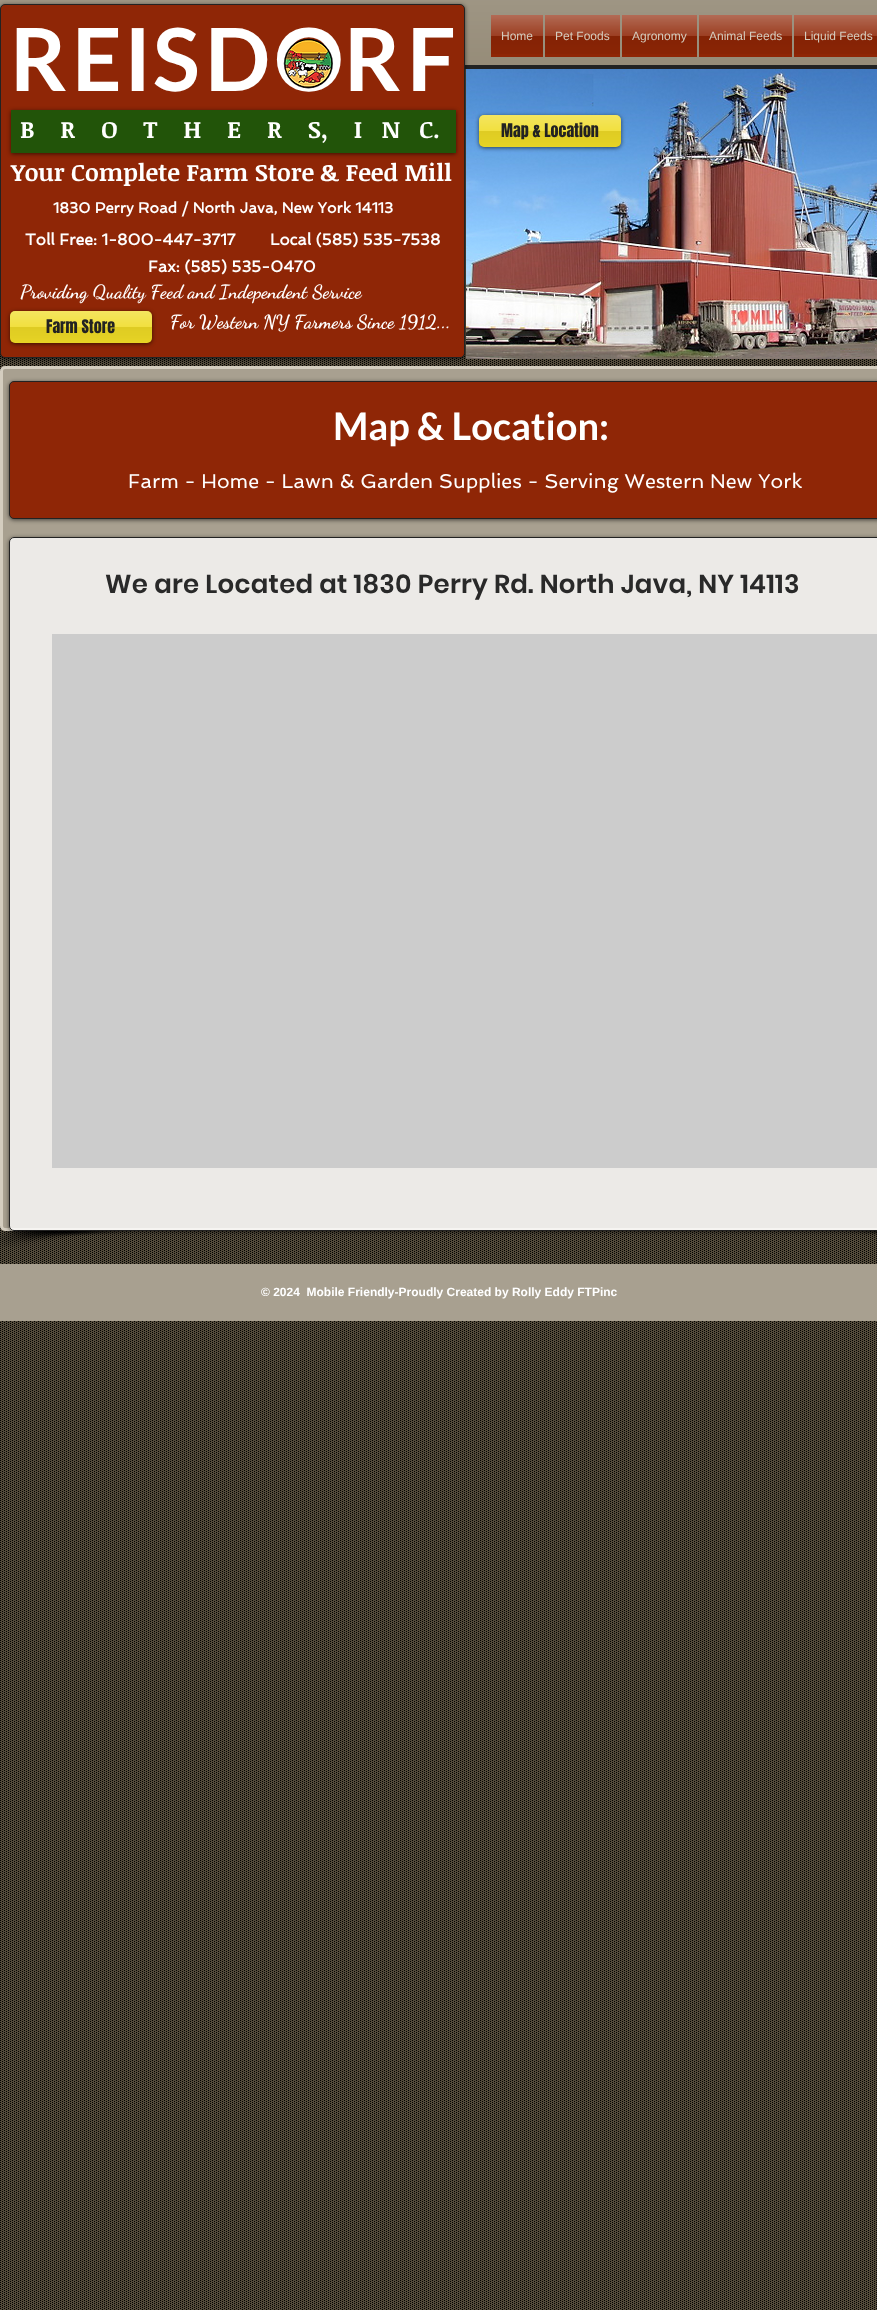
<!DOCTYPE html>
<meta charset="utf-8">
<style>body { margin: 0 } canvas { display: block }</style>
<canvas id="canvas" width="877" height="2310"></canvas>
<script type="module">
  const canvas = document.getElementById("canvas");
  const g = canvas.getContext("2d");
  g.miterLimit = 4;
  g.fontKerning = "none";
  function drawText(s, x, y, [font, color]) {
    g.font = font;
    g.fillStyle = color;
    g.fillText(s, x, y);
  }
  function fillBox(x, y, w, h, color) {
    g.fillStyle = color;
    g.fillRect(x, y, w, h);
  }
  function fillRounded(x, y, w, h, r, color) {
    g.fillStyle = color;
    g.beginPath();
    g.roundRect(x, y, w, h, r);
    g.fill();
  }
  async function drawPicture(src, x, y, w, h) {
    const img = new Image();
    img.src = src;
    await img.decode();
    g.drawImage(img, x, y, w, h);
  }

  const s1 = ["bold 87px Lato", "#FFFFFF"];
  const s2 = ["bold 24px Noticia Text", "#FFFFFF"];
  const s3 = ["bold 15px Spinnaker", "#FFFFFF"];
  const s4 = ["bold 16px Spinnaker", "#FFFFFF"];
  const s5 = ["bold 19px Dancing Script", "#FFFFFF"];
  const s6 = ["16px Anton", "#222222"];
  const s7 = ["12px Liberation Sans", "#D4CDBF"];
  const s8 = ["bold 38px Lato", "#FFFFFF"];
  const s9 = ["20px Spinnaker", "#FFFFFF"];
  const s10 = ["600 26px Poppins", "#292929"];
  const s11 = ["bold 12px Liberation Sans", "#FFFFFF"];

  fillBox(0, 0, 877, 2310, "#534B3B");
  fillBox(0, 0, 877, 65, "#7D7159");
  fillBox(465, 65, 412, 4, "#222222");
  await drawPicture("pic1.png", 0, 0, 877, 65);
  await drawPicture("pic12.png", 0, 354, 877, 1956);
  g.fillStyle = "rgba(0, 0, 0, 0.6)";
  g.filter = "blur(2px)";
  g.beginPath();
  g.roundRect(0, 5, 465, 354, 5);
  g.fill();
  g.filter = "none";
  g.fillStyle = "#8F2606";
  g.beginPath();
  g.roundRect(0.5, 4.5, 464, 353, 4.5);
  g.fill();
  g.strokeStyle = "#222222";
  g.stroke();
  drawText("R", 10, 91, s1);
  drawText("E", 72, 91, s1);
  drawText("I", 124, 91, s1);
  drawText("S", 153, 91, s1);
  drawText("D", 205, 91, s1);
  drawText("O", 274, 91, s1);
  await drawPicture("pic2.png", 283, 38, 50, 51);
  g.fillStyle = "rgba(0, 0, 0, 0.6)";
  g.filter = "blur(2px)";
  g.beginPath();
  g.rect(11, 111, 445, 43);
  g.fill();
  g.filter = "none";
  fillBox(11, 110, 445, 43, "#225409");
  drawText("B    R    O    T    H    E    R    S,    I   N   C.", 20, 138, s2);
  drawText("1830 Perry Road / North Java, New York 14113", 53, 213, s3);
  drawText("Toll Free: 1-800-447-3717", 25, 245, s4);
  drawText("Local (585) 535-7538", 270, 245, s4);
  drawText("Fax: (585) 535-0470", 148, 272, s4);
  drawText("Providing Quality Feed and Independent Service", 20, 298, s5);
  g.fillStyle = "rgba(0, 0, 0, 0.6)";
  g.filter = "blur(2px)";
  g.beginPath();
  g.roundRect(10, 312, 142, 32, 5);
  g.fill();
  g.filter = "none";
  fillRounded(10, 311, 142, 32, 5, "#F0DC26");
  await drawPicture("pic3.png", 10, 311, 142, 32);
  drawText("Farm Store", 46, 333, s6);
  drawText("For Western NY Farmers Since 1912...", 170, 328, s5);
  drawText("R", 344, 91, s1);
  drawText("F", 407, 91, s1);
  fillBox(491, 15, 52, 42, "#8F2606");
  await drawPicture("pic4.png", 491, 15, 52, 39);
  drawText("Home", 501, 40, s7);
  fillBox(545, 15, 75, 42, "#8F2606");
  await drawPicture("pic5.png", 545, 15, 75, 39);
  drawText("Pet Foods", 555, 40, s7);
  fillBox(622, 15, 75, 42, "#8F2606");
  await drawPicture("pic5.png", 622, 15, 75, 39);
  drawText("Agronomy", 632, 40, s7);
  fillBox(699, 15, 93, 42, "#8F2606");
  await drawPicture("pic6.png", 699, 15, 93, 39);
  drawText("Animal Feeds", 709, 40, s7);
  fillBox(794, 15, 83, 42, "#8F2606");
  await drawPicture("pic7.png", 794, 15, 83, 39);
  drawText("Liquid Feeds", 804, 40, s7);
  await drawPicture("pic8.png", 466, 69, 411, 290);
  g.fillStyle = "rgba(0, 0, 0, 0.6)";
  g.filter = "blur(2px)";
  g.beginPath();
  g.roundRect(479, 116, 142, 32, 5);
  g.fill();
  g.filter = "none";
  fillRounded(479, 115, 142, 32, 5, "#F0DC26");
  await drawPicture("pic9.png", 479, 115, 142, 32);
  drawText("Map & Location", 501, 137, s6);
  drawText("Your Complete Farm Store & Feed Mill", 11, 181, s2);
  g.fillStyle = "#A8A090";
  g.beginPath();
  g.roundRect(1.5, 367.5, 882, 862, 3.5);
  g.fill();
  g.strokeStyle = "#D4CDBF";
  g.lineWidth = 3;
  g.stroke();
  await drawPicture("pic10.png", 0, 1231, 132, 16);
  await drawPicture("pic11.png", 848, 1231, 29, 4);
  g.fillStyle = "rgba(0, 0, 0, 0.6)";
  g.filter = "blur(2px)";
  g.beginPath();
  g.roundRect(9, 382, 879, 138, 5);
  g.fill();
  g.filter = "none";
  g.fillStyle = "#8F2606";
  g.beginPath();
  g.roundRect(9.5, 381.5, 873, 137, 4.5);
  g.fill();
  g.strokeStyle = "#222222";
  g.lineWidth = 1;
  g.stroke();
  drawText("Map & Location:", 333, 440, s8);
  drawText("Farm - Home - Lawn & Garden Supplies - Serving Western New York", 128, 488, s9);
  g.save();
  g.beginPath();
  g.moveTo(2, 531);
  g.lineTo(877, 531);
  g.lineTo(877, 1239);
  g.lineTo(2, 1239);
  g.closePath();
  g.moveTo(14, 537);
  g.lineTo(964, 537);
  g.bezierCurveTo(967, 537, 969, 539, 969, 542);
  g.lineTo(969, 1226);
  g.bezierCurveTo(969, 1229, 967, 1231, 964, 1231);
  g.lineTo(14, 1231);
  g.bezierCurveTo(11, 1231, 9, 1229, 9, 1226);
  g.lineTo(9, 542);
  g.bezierCurveTo(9, 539, 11, 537, 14, 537);
  g.closePath();
  g.clip("evenodd");
  g.fillStyle = "rgba(0, 0, 0, 0.6)";
  g.filter = "blur(2px)";
  g.beginPath();
  g.roundRect(9, 538, 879, 694, 5);
  g.fill();
  g.filter = "none";
  g.restore();
  g.fillStyle = "rgba(255, 255, 255, 0.78)";
  g.beginPath();
  g.roundRect(9.5, 537.5, 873, 693, 4.5);
  g.fill();
  g.stroke();
  g.letterSpacing = "0.25px";
  drawText("We are Located at 1830 Perry Rd. North Java, NY 14113", 105, 593, s10);
  fillBox(52, 634, 825, 534, "#CCCCCC");
  fillBox(0, 1264, 877, 57, "#A8A090");
  g.letterSpacing = "0px";
  drawText("© 2024  Mobile Friendly-Proudly Created by Rolly Eddy FTPinc", 261, 1296, s11);
</script>
